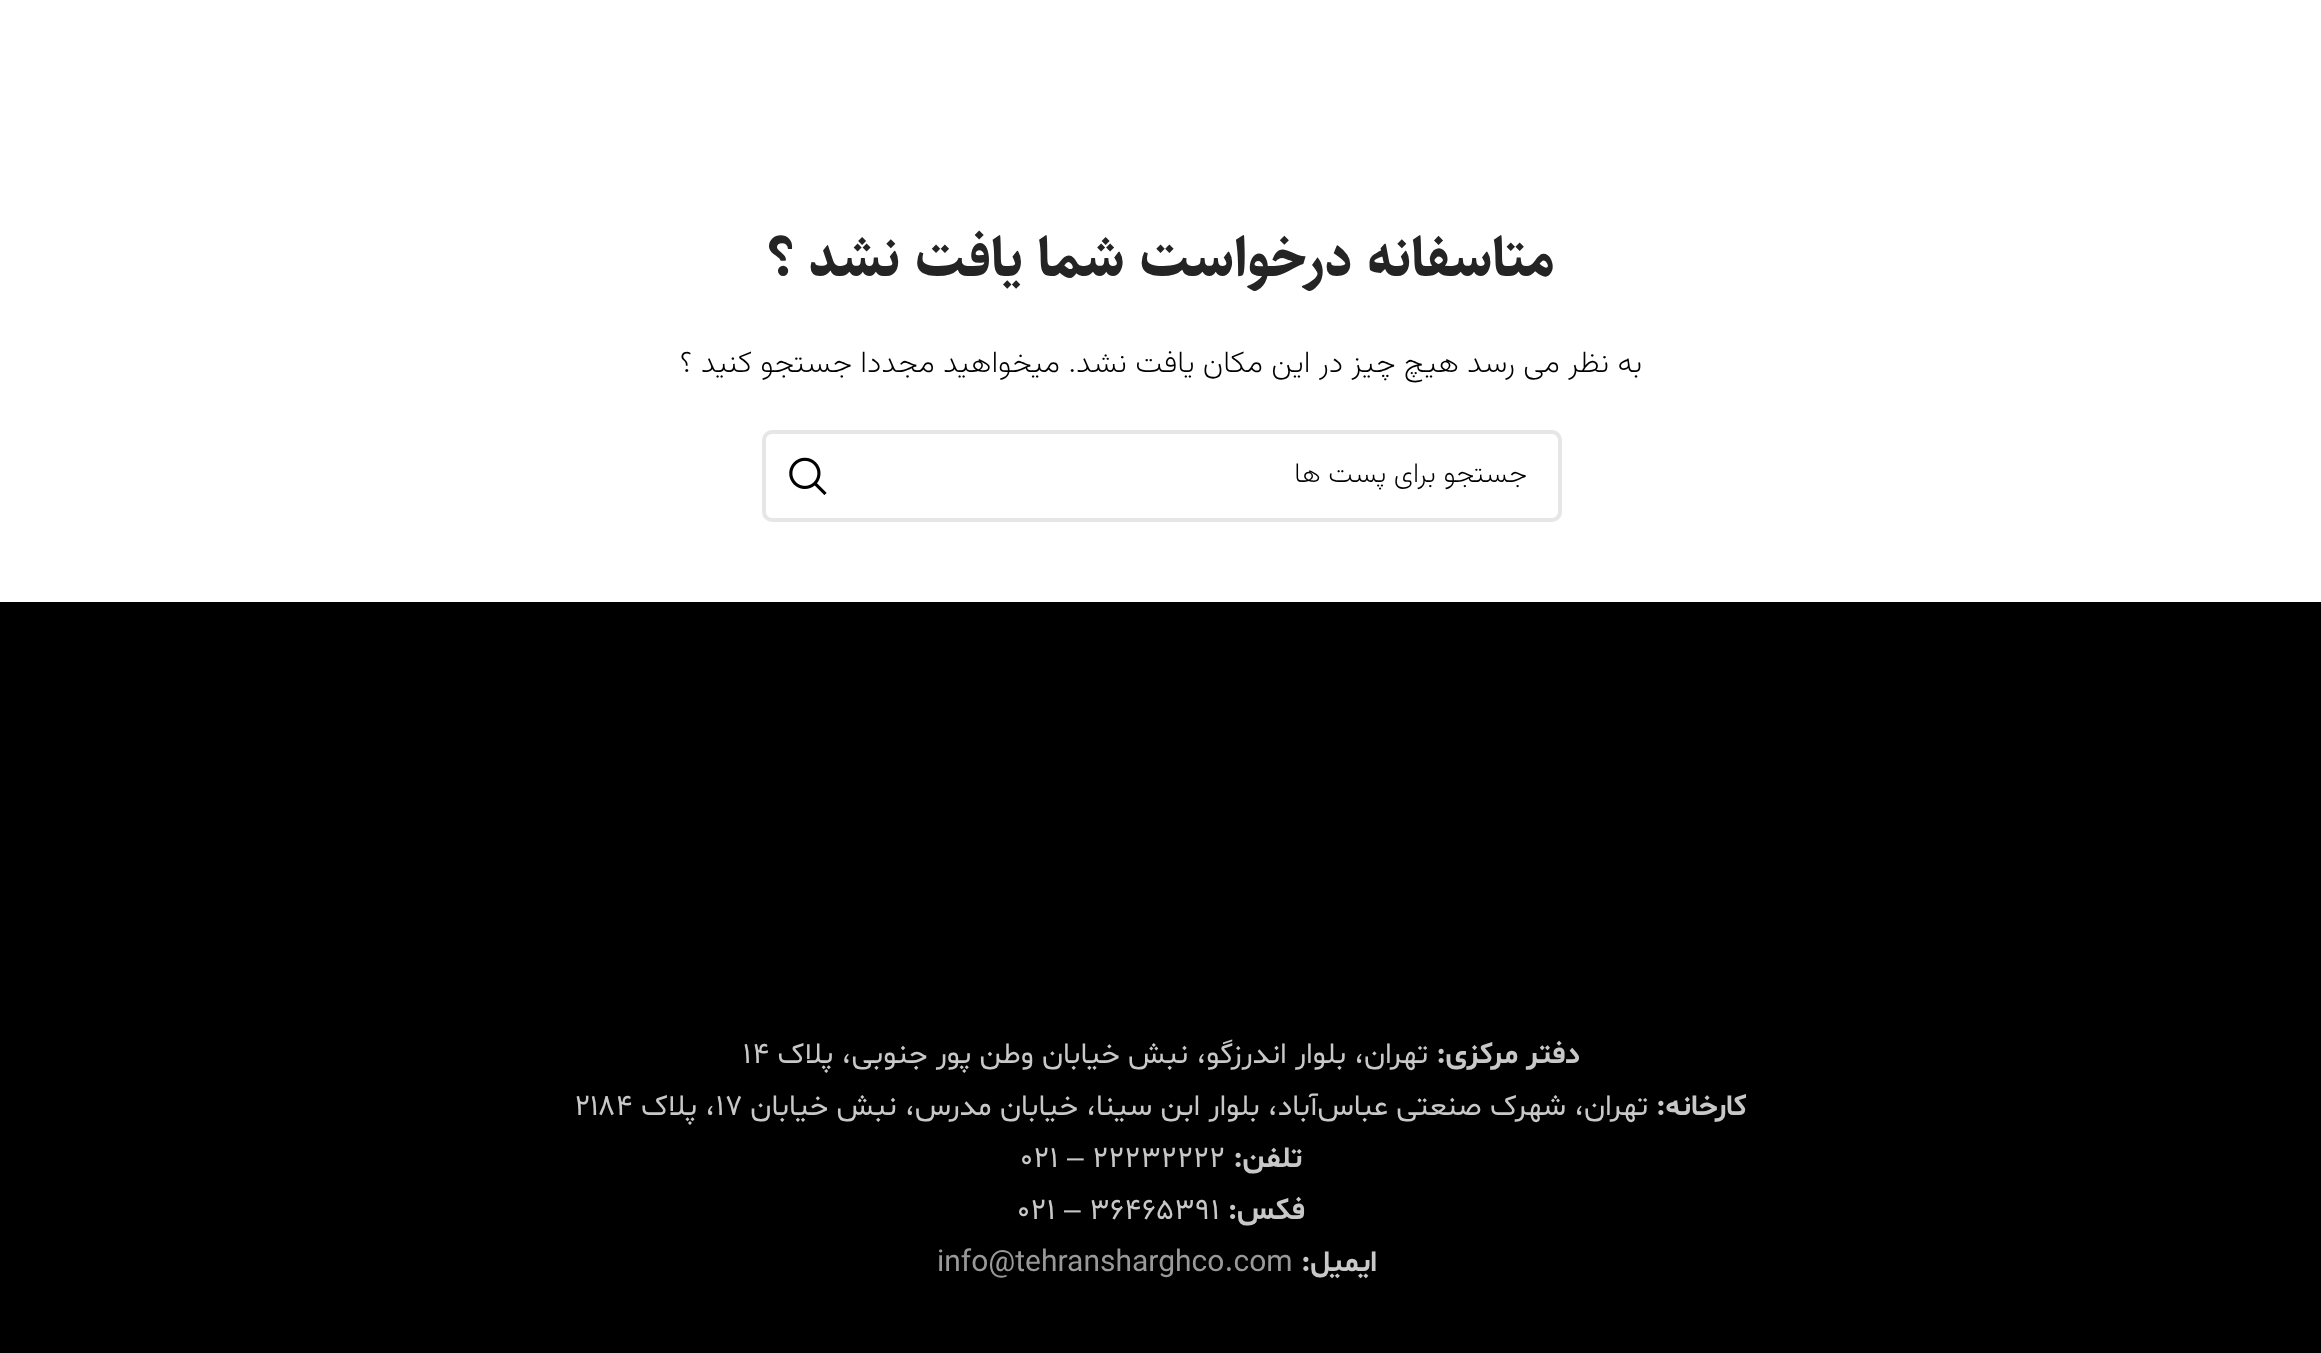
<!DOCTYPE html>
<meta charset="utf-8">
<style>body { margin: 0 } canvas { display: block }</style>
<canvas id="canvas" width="2321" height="1353"></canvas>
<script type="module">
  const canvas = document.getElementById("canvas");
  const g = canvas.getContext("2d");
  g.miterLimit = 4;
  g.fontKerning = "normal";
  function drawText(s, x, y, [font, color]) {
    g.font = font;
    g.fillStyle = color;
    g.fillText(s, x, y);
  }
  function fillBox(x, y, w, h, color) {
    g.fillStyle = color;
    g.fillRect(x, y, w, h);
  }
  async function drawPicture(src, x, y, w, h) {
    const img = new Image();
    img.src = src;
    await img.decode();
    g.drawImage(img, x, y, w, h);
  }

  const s1 = ["bold 56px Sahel", "#242424"];
  const s2 = ["200 30.8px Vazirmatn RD", "#000000"];
  const s3 = ["200 28px Vazirmatn RD", "#000000"];
  const s4 = ["bold 30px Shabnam", "#C8C8C8"];
  const s5 = ["30px Shabnam", "#C8C8C8"];
  const s6 = ["30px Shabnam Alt", "#C8C8C8"];
  const s7 = ["30px Liberation Sans", "#C8C8C8"];
  const s8 = ["30px Shabnam", "#999999"];

  fillBox(0, 0, 2321, 1353, "#FFFFFF");
  g.direction = "rtl";
  drawText("متاسفانه درخواست شما یافت نشد ؟", 1555, 276, s1);
  drawText("به نظر می رسد هیچ چیز در این مکان یافت نشد. میخواهید مجددا جستجو کنید ؟", 1642, 372, s2);
  g.beginPath();
  g.roundRect(764, 432, 796, 88, 8);
  g.strokeStyle = "#E6E6E6";
  g.lineWidth = 4;
  g.stroke();
  drawText("جستجو برای پست ها", 1527, 482, s3);
  await drawPicture("pic1.png", 789, 457, 38, 38);
  fillBox(0, 602, 2321, 751, "#000000");
  drawText("دفتر مرکزی:", 1580, 1063, s4);
  drawText("تهران، بلوار اندرزگو، نبش خیابان وطن پور جنوبی، پلاک", 1428, 1063, s5);
  g.direction = "ltr";
  drawText("۱۴", 742, 1063, s5);
  g.direction = "rtl";
  drawText("کارخانه:", 1747, 1115, s4);
  drawText("تهران، شهرک صنعتی عباس‌آباد، بلوار ابن سینا، خیابان مدرس، نبش خیابان", 1648, 1115, s5);
  g.direction = "ltr";
  drawText("۱۷", 715, 1115, s5);
  g.direction = "rtl";
  drawText("، پلاک", 715, 1115, s5);
  g.direction = "ltr";
  drawText("۲۱۸۴", 575, 1115, s5);
  g.direction = "rtl";
  drawText("تلفن:", 1302, 1167, s4);
  g.direction = "ltr";
  drawText("22232222", 1092, 1167, s6);
  drawText("–", 1067, 1167, s7);
  drawText("021", 1020, 1167, s6);
  g.direction = "rtl";
  drawText("فکس:", 1305, 1219, s4);
  g.direction = "ltr";
  drawText("36465391", 1089, 1219, s6);
  drawText("–", 1064, 1219, s7);
  drawText("021", 1017, 1219, s6);
  g.direction = "rtl";
  drawText("ایمیل:", 1377, 1271, s4);
  g.direction = "ltr";
  drawText("info@tehransharghco.com", 937, 1271, s8);
</script>
